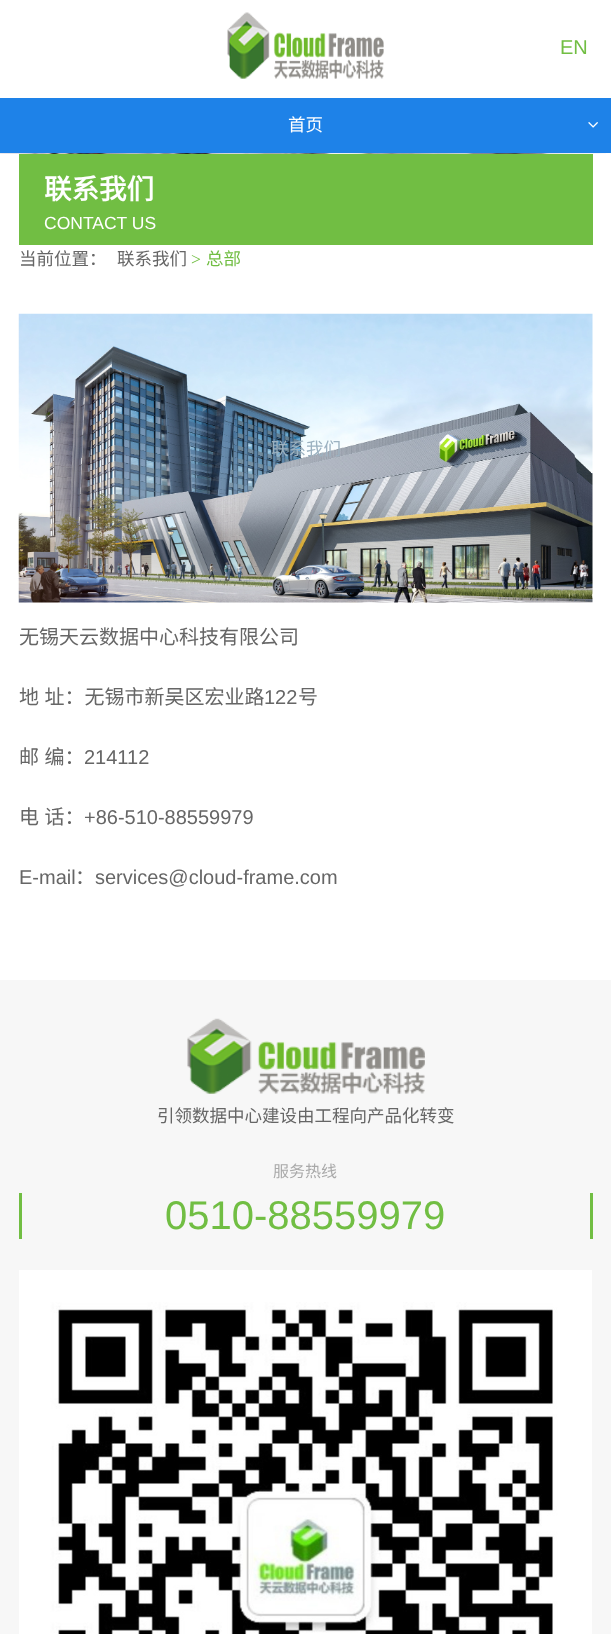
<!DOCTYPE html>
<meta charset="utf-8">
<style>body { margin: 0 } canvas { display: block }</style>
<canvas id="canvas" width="611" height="1634"></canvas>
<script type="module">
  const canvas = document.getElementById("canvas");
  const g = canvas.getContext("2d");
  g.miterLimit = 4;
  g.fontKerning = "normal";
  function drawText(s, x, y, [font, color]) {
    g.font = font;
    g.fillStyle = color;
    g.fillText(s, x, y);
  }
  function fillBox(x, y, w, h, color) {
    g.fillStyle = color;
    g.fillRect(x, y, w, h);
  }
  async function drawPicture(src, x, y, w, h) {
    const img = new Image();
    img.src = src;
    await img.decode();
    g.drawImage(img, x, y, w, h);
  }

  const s1 = ["20px Liberation Sans", "#71BE43"];
  const s2 = ["17.5px Noto Sans CJK SC", "#FFFFFF"];
  const s3 = ["17.5px Noto Sans CJK SC", "#9CB2C1"];
  const s4 = ["bold 27.5px Noto Sans CJK SC", "#FFFFFF"];
  const s5 = ["17.5px Liberation Sans", "#FFFFFF"];
  const s6 = ["17.5px Noto Sans CJK SC", "#666666"];
  const s7 = ["17.5px Liberation Serif", "#71BE43"];
  const s8 = ["17.5px Noto Sans CJK SC", "#71BE43"];
  const s9 = ["20px Noto Sans CJK SC", "#666666"];
  const s10 = ["20px Liberation Sans", "#666666"];
  const s11 = ["16px Noto Sans CJK SC", "#A9A9A9"];
  const s12 = ["40px Liberation Sans", "#71BE43"];

  fillBox(0, 0, 611, 1634, "#FFFFFF");
  await drawPicture("pic1.png", 227, 12, 157, 67);
  drawText("EN", 560, 54, s1);
  fillBox(0, 98, 611, 55, "#1E82E8");
  drawText("首页", 288, 131, s2);
  await drawPicture("pic2.png", 588, 122, 10, 6);
  await drawPicture("pic4.png", 18, 313, 575, 290);
  drawText("联系我们", 271, 455, s3);
  await drawPicture("pic3.png", 0, 153, 606, 1);
  fillBox(19, 154, 574, 91, "#71BE43");
  drawText("联系我们", 44, 199, s4);
  drawText("CONTACT US", 44, 229, s5);
  drawText("当前位置：", 19, 265, s6);
  drawText("联系我们", 117, 265, s6);
  drawText(">", 191, 265, s7);
  drawText("总部", 206, 265, s8);
  drawText("无锡天云数据中心科技有限公司", 19, 644, s9);
  g.wordSpacing = "1px";
  drawText("地 址：无锡市新吴区宏业路", 19, 704, s9);
  g.wordSpacing = "0px";
  drawText("122", 264, 704, s10);
  drawText("号", 298, 704, s9);
  g.wordSpacing = "1px";
  drawText("邮 编：", 19, 764, s9);
  g.wordSpacing = "0px";
  drawText("214112", 84, 764, s10);
  g.wordSpacing = "1px";
  drawText("电 话：", 19, 824, s9);
  g.wordSpacing = "0px";
  drawText("+86-510-88559979", 84, 824, s10);
  drawText("E-mail", 19, 884, s10);
  drawText("：", 75, 884, s9);
  drawText("services@cloud-frame.com", 95, 884, s10);
  fillBox(0, 980, 611, 654, "#F7F7F7");
  await drawPicture("pic5.png", 187, 1018, 238, 76);
  drawText("引领数据中心建设由工程向产品化转变", 157, 1122, s6);
  drawText("服务热线", 273, 1177, s11);
  fillBox(590, 1193, 3, 46, "#71BE43");
  fillBox(19, 1193, 3, 46, "#71BE43");
  drawText("0510-88559979", 165, 1229, s12);
  await drawPicture("pic6.png", 19, 1270, 573, 364);
</script>
